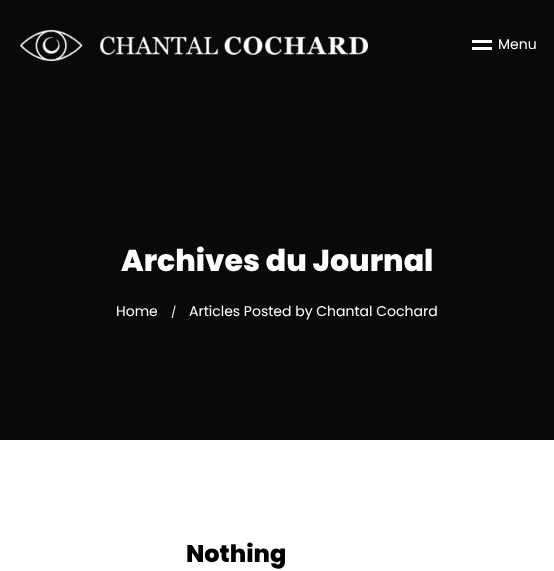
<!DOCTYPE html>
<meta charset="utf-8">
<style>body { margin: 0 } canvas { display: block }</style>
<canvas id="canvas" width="554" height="571"></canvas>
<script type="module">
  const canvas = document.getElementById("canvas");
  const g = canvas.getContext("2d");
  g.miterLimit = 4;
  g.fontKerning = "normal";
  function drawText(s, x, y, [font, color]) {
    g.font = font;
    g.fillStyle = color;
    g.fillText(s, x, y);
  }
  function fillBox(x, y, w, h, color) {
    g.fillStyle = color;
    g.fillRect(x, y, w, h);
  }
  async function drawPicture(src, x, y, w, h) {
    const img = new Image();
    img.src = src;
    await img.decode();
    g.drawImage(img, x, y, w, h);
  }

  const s1 = ["14px Poppins", "#FFFFFF"];
  const s2 = ["800 30px Poppins", "#FFFFFF"];
  const s3 = ["11px Poppins", "#FFFFFF"];
  const s4 = ["800 24px Poppins", "#000000"];

  fillBox(0, 0, 554, 571, "#FFFFFF");
  fillBox(0, 0, 554, 440, "#090909");
  await drawPicture("pic1.png", 20, 30, 348, 31);
  fillBox(472, 40, 20, 3, "#FFFFFF");
  fillBox(472, 47, 20, 3, "#FFFFFF");
  drawText("Menu", 498, 49, s1);
  drawText("Archives du Journal", 121, 271, s2);
  drawText("Home", 116, 316, s1);
  drawText("/", 171, 316, s3);
  drawText("Articles Posted by Chantal Cochard", 189, 316, s1);
  drawText("Nothing", 186, 562, s4);
</script>
